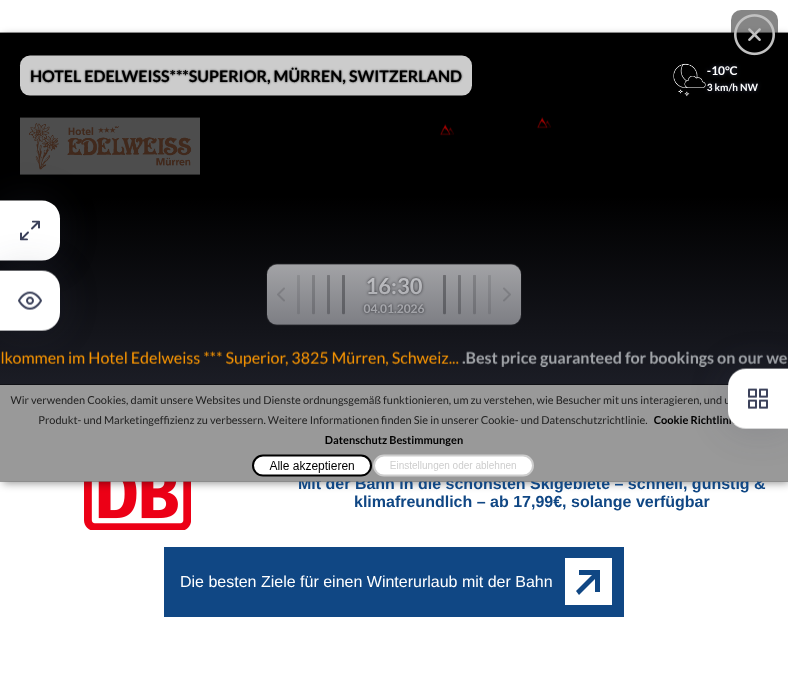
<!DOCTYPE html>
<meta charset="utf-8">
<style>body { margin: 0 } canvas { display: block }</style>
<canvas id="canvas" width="788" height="677"></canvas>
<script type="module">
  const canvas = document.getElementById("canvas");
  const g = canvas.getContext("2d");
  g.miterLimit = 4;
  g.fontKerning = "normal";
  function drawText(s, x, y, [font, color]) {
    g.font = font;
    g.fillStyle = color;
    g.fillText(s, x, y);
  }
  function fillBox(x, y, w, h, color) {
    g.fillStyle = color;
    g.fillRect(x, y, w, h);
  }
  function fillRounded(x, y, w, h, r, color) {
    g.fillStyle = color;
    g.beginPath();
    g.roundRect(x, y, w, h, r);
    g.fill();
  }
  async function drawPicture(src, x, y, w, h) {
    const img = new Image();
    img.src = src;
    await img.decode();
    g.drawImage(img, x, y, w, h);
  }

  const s1 = ["bold 16px Liberation Sans", "#104784"];
  const s2 = ["16px Liberation Sans", "#FFFFFF"];

  fillBox(0, 0, 788, 677, "#FFFFFF");
  await drawPicture("pic3.png", 84, 481, 107, 49);
  g.fillStyle = "rgba(0, 0, 0, 0.43)";
  g.filter = "blur(4px)";
  g.beginPath();
  g.rect(3, 36, 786, 447);
  g.fill();
  g.filter = "none";
  drawText("Mit der Bahn in die schönsten Skigebiete – schnell, günstig &", 298, 489, s1);
  await drawPicture("pic2.png", 0, 32, 788, 450);
  fillRounded(731, 10, 47, 48, 10, "rgba(0, 0, 0, 0.48)");
  await drawPicture("pic1.png", 734, 14, 41, 42);
  drawText("klimafreundlich – ab 17,99€, solange verfügbar", 354, 507, s1);
  fillBox(164, 547, 460, 70, "#104784");
  drawText("Die besten Ziele für einen Winterurlaub mit der Bahn", 180, 587, s2);
  g.beginPath();
  g.moveTo(565, 558);
  g.lineTo(612, 558);
  g.lineTo(565, 558);
  g.lineTo(612, 558);
  g.lineTo(612, 605);
  g.lineTo(565, 605);
  g.closePath();
  g.moveTo(598, 570);
  g.lineTo(579, 570);
  g.lineTo(579, 575);
  g.lineTo(592, 575);
  g.lineTo(576, 591);
  g.lineTo(579, 595);
  g.lineTo(595, 579);
  g.lineTo(595, 592);
  g.lineTo(600, 592);
  g.lineTo(600, 570);
  g.closePath();
  g.fill();
</script>
